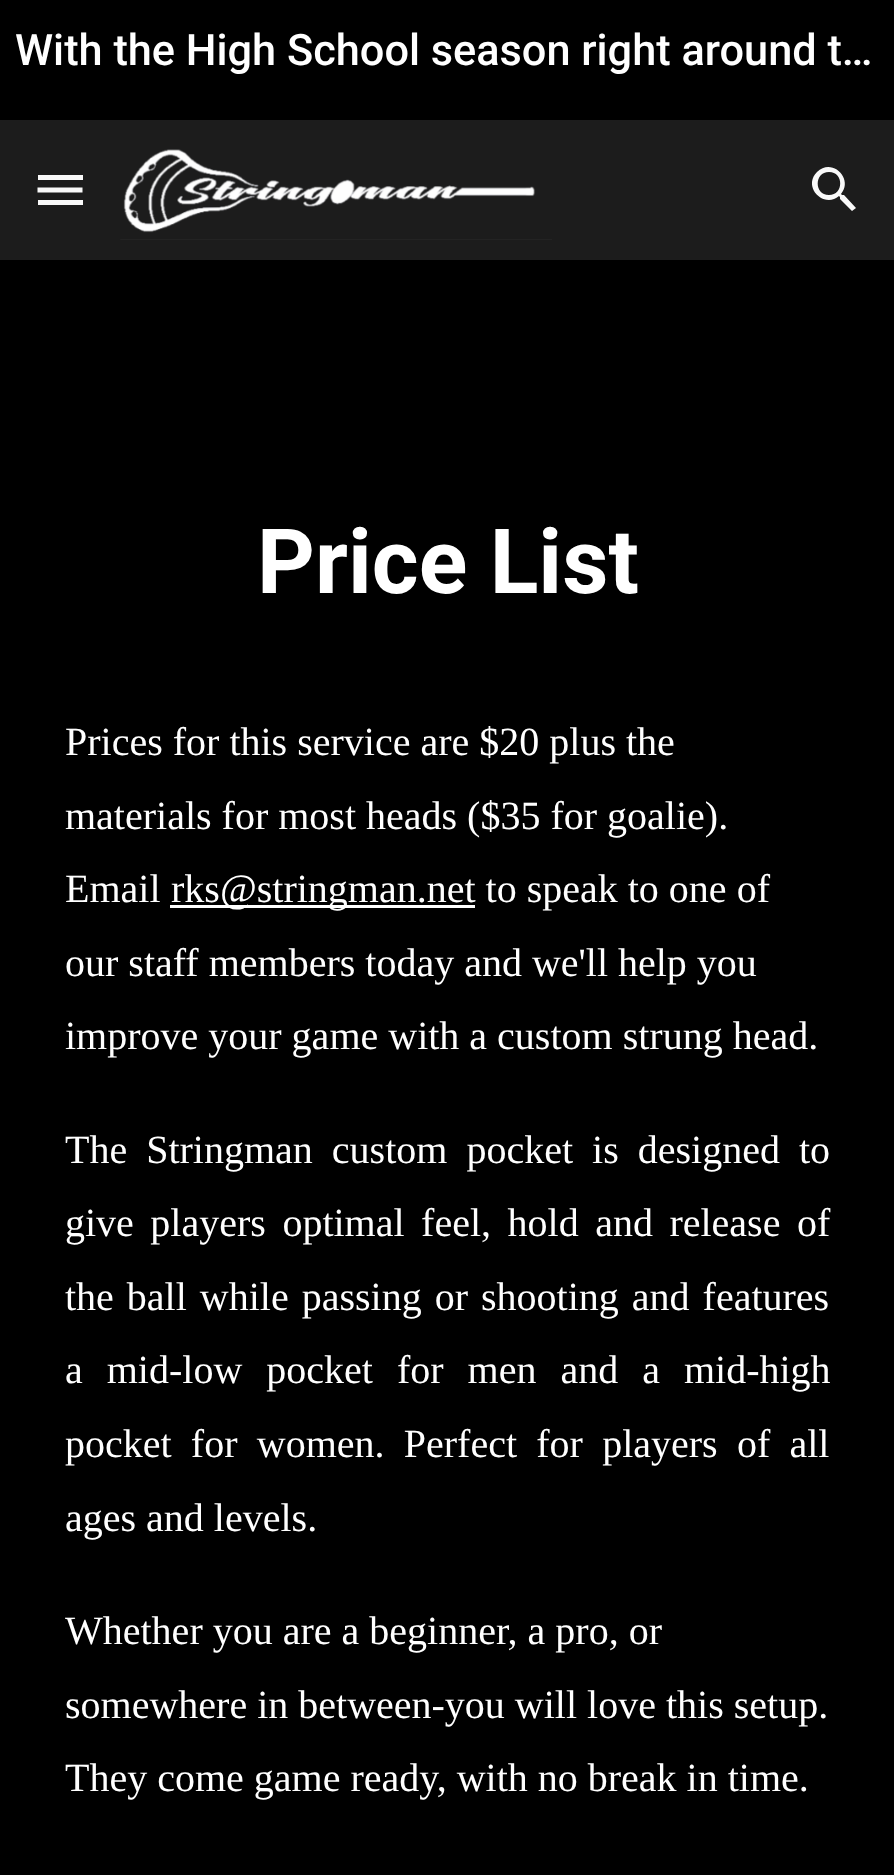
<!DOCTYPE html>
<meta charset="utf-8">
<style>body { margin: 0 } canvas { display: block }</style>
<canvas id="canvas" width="894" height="1875"></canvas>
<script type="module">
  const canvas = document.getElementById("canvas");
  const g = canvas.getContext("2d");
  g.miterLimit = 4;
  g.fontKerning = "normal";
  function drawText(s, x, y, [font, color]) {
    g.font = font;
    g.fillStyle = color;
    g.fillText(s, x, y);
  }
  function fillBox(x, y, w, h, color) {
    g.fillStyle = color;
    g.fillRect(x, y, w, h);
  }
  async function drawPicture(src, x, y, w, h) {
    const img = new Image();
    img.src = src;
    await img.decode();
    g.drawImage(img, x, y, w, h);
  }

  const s1 = ["500 43.3px Roboto", "#FFFFFF"];
  const s2 = ["bold 90px Roboto", "#FFFFFF"];
  const s3 = ["40px Liberation Serif", "#FFFFFF"];

  fillBox(0, 0, 894, 1875, "#000000");
  drawText("With the High School season right around t…", 15, 65, s1);
  fillBox(0, 120, 894, 140, "#1C1C1C");
  await drawPicture("pic1.png", 120, 149, 432, 91);
  g.fillStyle = "#F9F9F9";
  g.beginPath();
  g.moveTo(844, 195);
  g.lineTo(842, 195);
  g.lineTo(841, 194);
  g.bezierCurveTo(854, 179, 832, 157, 817, 172);
  g.bezierCurveTo(802, 187, 824, 209, 839, 196);
  g.lineTo(840, 197);
  g.lineTo(840, 199);
  g.lineTo(852, 211);
  g.lineTo(856, 208);
  g.closePath();
  g.moveTo(829, 195);
  g.bezierCurveTo(814, 195, 814, 172, 829, 172);
  g.bezierCurveTo(844, 172, 844, 195, 829, 195);
  g.closePath();
  g.fill();
  fillBox(38, 175, 45, 5, "#F9F9F9");
  g.beginPath();
  g.moveTo(37.5, 190);
  g.lineTo(82.5, 190);
  g.strokeStyle = "#F9F9F9";
  g.lineWidth = 5;
  g.stroke();
  fillBox(38, 200, 45, 5, "#F9F9F9");
  drawText("Price List", 257, 593, s2);
  drawText("Prices for this service are $20 plus the", 65, 755, s3);
  drawText("materials for most heads ($35 for goalie).", 65, 829, s3);
  drawText("Email", 65, 902, s3);
  fillBox(170, 905, 305, 3, "#FFFFFF");
  drawText("rks@stringman.net to speak to one of", 171, 902, s3);
  drawText("our staff members today and we'll help you", 65, 976, s3);
  drawText("improve your game with a custom strung head.", 65, 1049, s3);
  g.wordSpacing = "9px";
  drawText("The Stringman custom pocket is designed to", 65, 1163, s3);
  g.wordSpacing = "6.5px";
  drawText("give players optimal feel, hold and release of", 65, 1236, s3);
  g.wordSpacing = "3px";
  drawText("the ball while passing or shooting and features", 65, 1310, s3);
  g.wordSpacing = "14px";
  drawText("a mid-low pocket for men and a mid-high", 65, 1383, s3);
  g.wordSpacing = "9.25px";
  drawText("pocket for women. Perfect for players of all", 65, 1457, s3);
  g.wordSpacing = "0px";
  drawText("ages and levels.", 65, 1531, s3);
  drawText("Whether you are a beginner, a pro, or", 65, 1644, s3);
  drawText("somewhere in between-you will love this setup.", 65, 1718, s3);
  drawText("They come game ready, with no break in time.", 65, 1791, s3);
</script>
